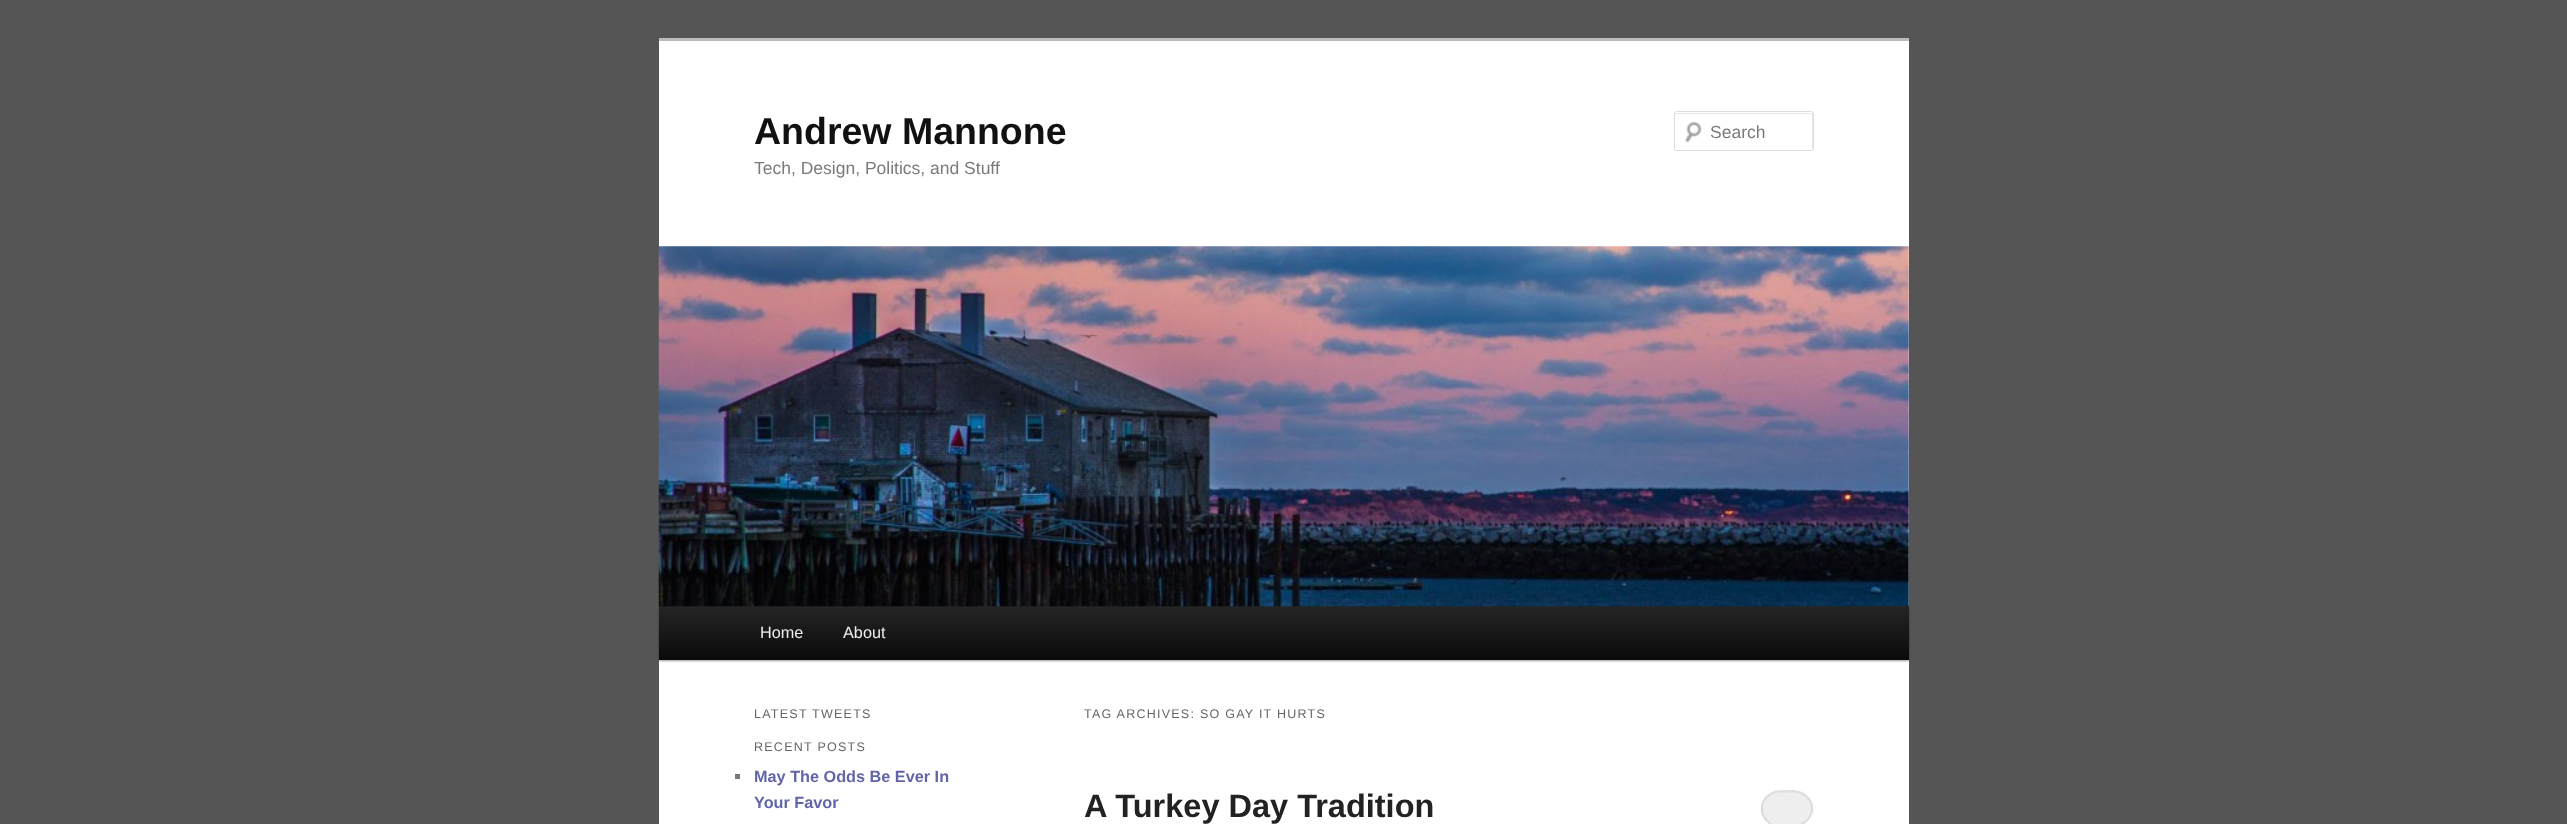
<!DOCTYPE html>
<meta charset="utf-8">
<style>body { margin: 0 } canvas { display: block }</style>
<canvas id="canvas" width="2567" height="824"></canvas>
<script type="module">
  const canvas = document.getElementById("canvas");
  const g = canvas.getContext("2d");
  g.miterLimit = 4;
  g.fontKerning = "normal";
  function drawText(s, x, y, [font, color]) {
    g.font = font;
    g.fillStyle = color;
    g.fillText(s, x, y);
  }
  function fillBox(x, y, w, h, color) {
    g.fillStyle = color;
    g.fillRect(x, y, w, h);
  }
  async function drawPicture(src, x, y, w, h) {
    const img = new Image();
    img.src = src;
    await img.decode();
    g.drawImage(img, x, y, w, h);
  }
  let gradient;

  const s1 = ["bold 37.5px Liberation Sans", "#111111"];
  const s2 = ["17.5px Liberation Sans", "#7A7A7A"];
  const s3 = ["16.25px Liberation Sans", "#EEEEEE"];
  const s4 = ["12.5px Liberation Sans", "#666666"];
  const s5 = ["bold 16.25px Liberation Sans", "#6265A7"];
  const s6 = ["bold 32.5px Liberation Sans", "#222222"];

  fillBox(0, 0, 2567, 824, "#555555");
  fillBox(659, 41, 1250, 783, "#FFFFFF");
  fillBox(659, 38, 1250, 3, "#BBBBBB");
  drawText("Andrew Mannone", 754, 144, s1);
  drawText("Tech, Design, Politics, and Stuff", 754, 174, s2);
  await drawPicture("pic1.png", 1685, 121, 17, 22);
  g.fillStyle = "#E6E6E6";
  g.beginPath();
  g.moveTo(1676, 114);
  g.lineTo(1811, 114);
  g.bezierCurveTo(1812, 114, 1812, 114, 1812, 115);
  g.lineTo(1812, 150);
  g.bezierCurveTo(1813, 150, 1813, 150, 1813, 149);
  g.lineTo(1813, 114);
  g.bezierCurveTo(1813, 113, 1813, 113, 1812, 113);
  g.lineTo(1676, 113);
  g.bezierCurveTo(1675, 113, 1675, 113, 1675, 114);
  g.lineTo(1675, 115);
  g.closePath();
  g.fill();
  g.beginPath();
  g.roundRect(1674.5, 111.5, 139, 39, 2);
  g.strokeStyle = "#DDDDDD";
  g.stroke();
  drawText("Search", 1710, 138, s2);
  g.fillStyle = "rgba(0, 0, 0, 0.4)";
  g.filter = "blur(1px)";
  g.beginPath();
  g.rect(659, 608, 1250, 53);
  g.fill();
  g.filter = "none";
  gradient = g.createLinearGradient(1284, 606, 1284, 660);
  gradient.addColorStop(0, "#252525");
  gradient.addColorStop(1, "#0A0A0A");
  g.fillStyle = gradient;
  g.fillRect(659, 606, 1250, 54);
  await drawPicture("pic2.png", 658, 246, 1251, 361);
  drawText("Home", 760, 638, s3);
  drawText("About", 843, 638, s3);
  g.letterSpacing = "1.25px";
  drawText("LATEST TWEETS", 754, 718, s4);
  drawText("RECENT POSTS", 754, 751, s4);
  fillBox(735, 774, 5, 5, "#777777");
  g.letterSpacing = "0px";
  drawText("May The Odds Be Ever In", 754, 782, s5);
  drawText("Your Favor", 754, 808, s5);
  g.letterSpacing = "1.25px";
  drawText("TAG ARCHIVES: SO GAY IT HURTS", 1084, 718, s4);
  g.letterSpacing = "0px";
  drawText("A Turkey Day Tradition", 1084, 817, s6);
  fillBox(1761, 788, 53, 36, "#EEEEEE");
  await drawPicture("pic3.png", 1760, 788, 54, 36);
</script>
